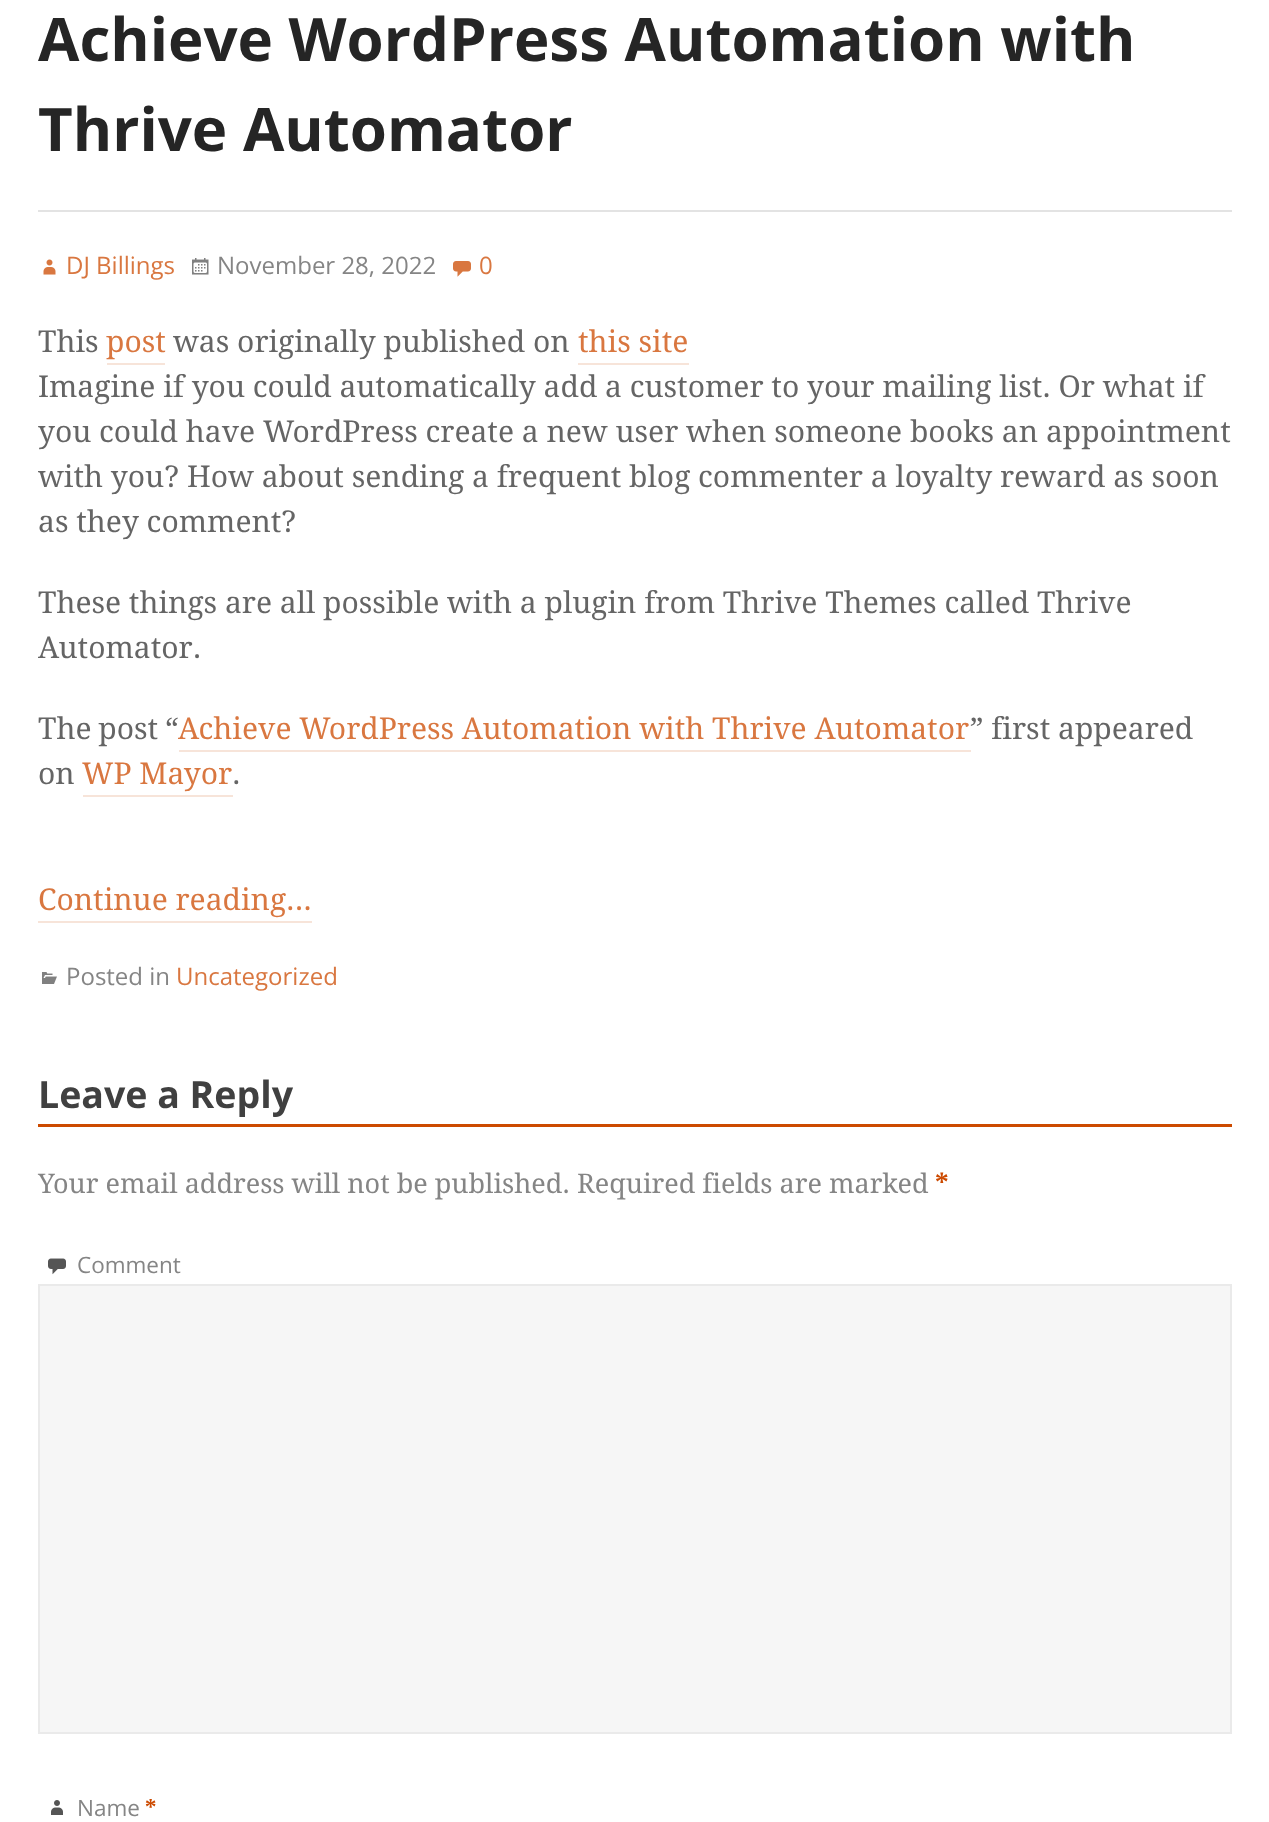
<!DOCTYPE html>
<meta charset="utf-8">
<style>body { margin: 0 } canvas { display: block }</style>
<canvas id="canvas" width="1269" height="1822"></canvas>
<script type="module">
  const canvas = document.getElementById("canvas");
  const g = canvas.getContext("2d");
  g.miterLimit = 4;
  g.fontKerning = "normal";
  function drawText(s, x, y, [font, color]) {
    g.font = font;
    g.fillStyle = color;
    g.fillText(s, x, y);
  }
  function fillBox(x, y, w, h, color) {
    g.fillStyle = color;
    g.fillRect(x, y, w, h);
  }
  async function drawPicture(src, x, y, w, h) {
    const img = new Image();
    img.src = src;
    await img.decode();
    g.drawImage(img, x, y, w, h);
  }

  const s1 = ["bold 60px Open Sans", "#252525"];
  const s2 = ["24px Open Sans", "#D97740"];
  const s3 = ["24px Open Sans", "#858585"];
  const s4 = ["30px Droid Serif", "#656565"];
  const s5 = ["30px Droid Serif", "#D97740"];
  const s6 = ["bold 37.5px Open Sans", "#404040"];
  const s7 = ["27px Droid Serif", "#858585"];
  const s8 = ["bold 27px Droid Serif", "#CC4A00"];
  const s9 = ["22.5px Open Sans", "#858585"];
  const s10 = ["bold 22.5px Droid Serif", "#CC4A00"];

  fillBox(0, 0, 1269, 1822, "#FFFFFF");
  fillBox(38, 210, 1194, 2, "#E3E3E3");
  drawText("Achieve WordPress Automation with", 38, 61, s1);
  drawText("Thrive Automator", 38, 151, s1);
  await drawPicture("pic1.png", 43, 259, 13, 16);
  drawText("DJ Billings", 66, 274, s2);
  await drawPicture("pic2.png", 192, 258, 17, 17);
  drawText("November 28, 2022", 217, 274, s3);
  await drawPicture("pic3.png", 453, 261, 18, 16);
  drawText("0", 479, 274, s2);
  drawText("This", 38, 352, s4);
  drawText("post", 106, 352, s5);
  fillBox(107, 363, 58, 2, "#F7E4D9");
  drawText("was originally published on", 173, 352, s4);
  drawText("this site", 578, 352, s5);
  fillBox(578, 363, 111, 2, "#F7E4D9");
  drawText("Imagine if you could automatically add a customer to your mailing list. Or what if", 38, 397, s4);
  drawText("you could have WordPress create a new user when someone books an appointment", 38, 442, s4);
  drawText("with you? How about sending a frequent blog commenter a loyalty reward as soon", 38, 487, s4);
  drawText("as they comment?", 38, 532, s4);
  drawText("These things are all possible with a plugin from Thrive Themes called Thrive", 38, 613, s4);
  drawText("Automator.", 38, 658, s4);
  g.wordSpacing = "-1px";
  drawText("The post “", 38, 739, s4);
  g.wordSpacing = "0px";
  drawText("Achieve WordPress Automation with Thrive Automator", 178, 739, s5);
  fillBox(179, 750, 792, 2, "#F7E4D9");
  drawText("” first appeared", 970, 739, s4);
  drawText("on", 38, 784, s4);
  drawText("WP Mayor", 82, 784, s5);
  fillBox(83, 795, 150, 2, "#F7E4D9");
  drawText(".", 232, 784, s4);
  drawText("Continue reading...", 38, 910, s5);
  fillBox(38, 921, 274, 2, "#F7E4D9");
  await drawPicture("pic4.png", 42, 972, 15, 12);
  drawText("Posted in", 66, 985, s3);
  drawText("Uncategorized", 176, 985, s2);
  fillBox(38, 1124, 1194, 3, "#CC4A00");
  drawText("Leave a Reply", 38, 1108, s6);
  drawText("Your email address will not be published. Required fields are marked", 38, 1193, s7);
  drawText("*", 935, 1193, s8);
  await drawPicture("pic5.png", 48, 1258, 18, 17);
  drawText("Comment", 77, 1273, s9);
  g.fillStyle = "#F6F6F6";
  g.beginPath();
  g.rect(39, 1285, 1192, 448);
  g.fill();
  g.strokeStyle = "#EAEAEA";
  g.lineWidth = 2;
  g.stroke();
  await drawPicture("pic6.png", 51, 1800, 12, 15);
  drawText("Name", 77, 1816, s9);
  drawText("*", 145, 1816, s10);
</script>
